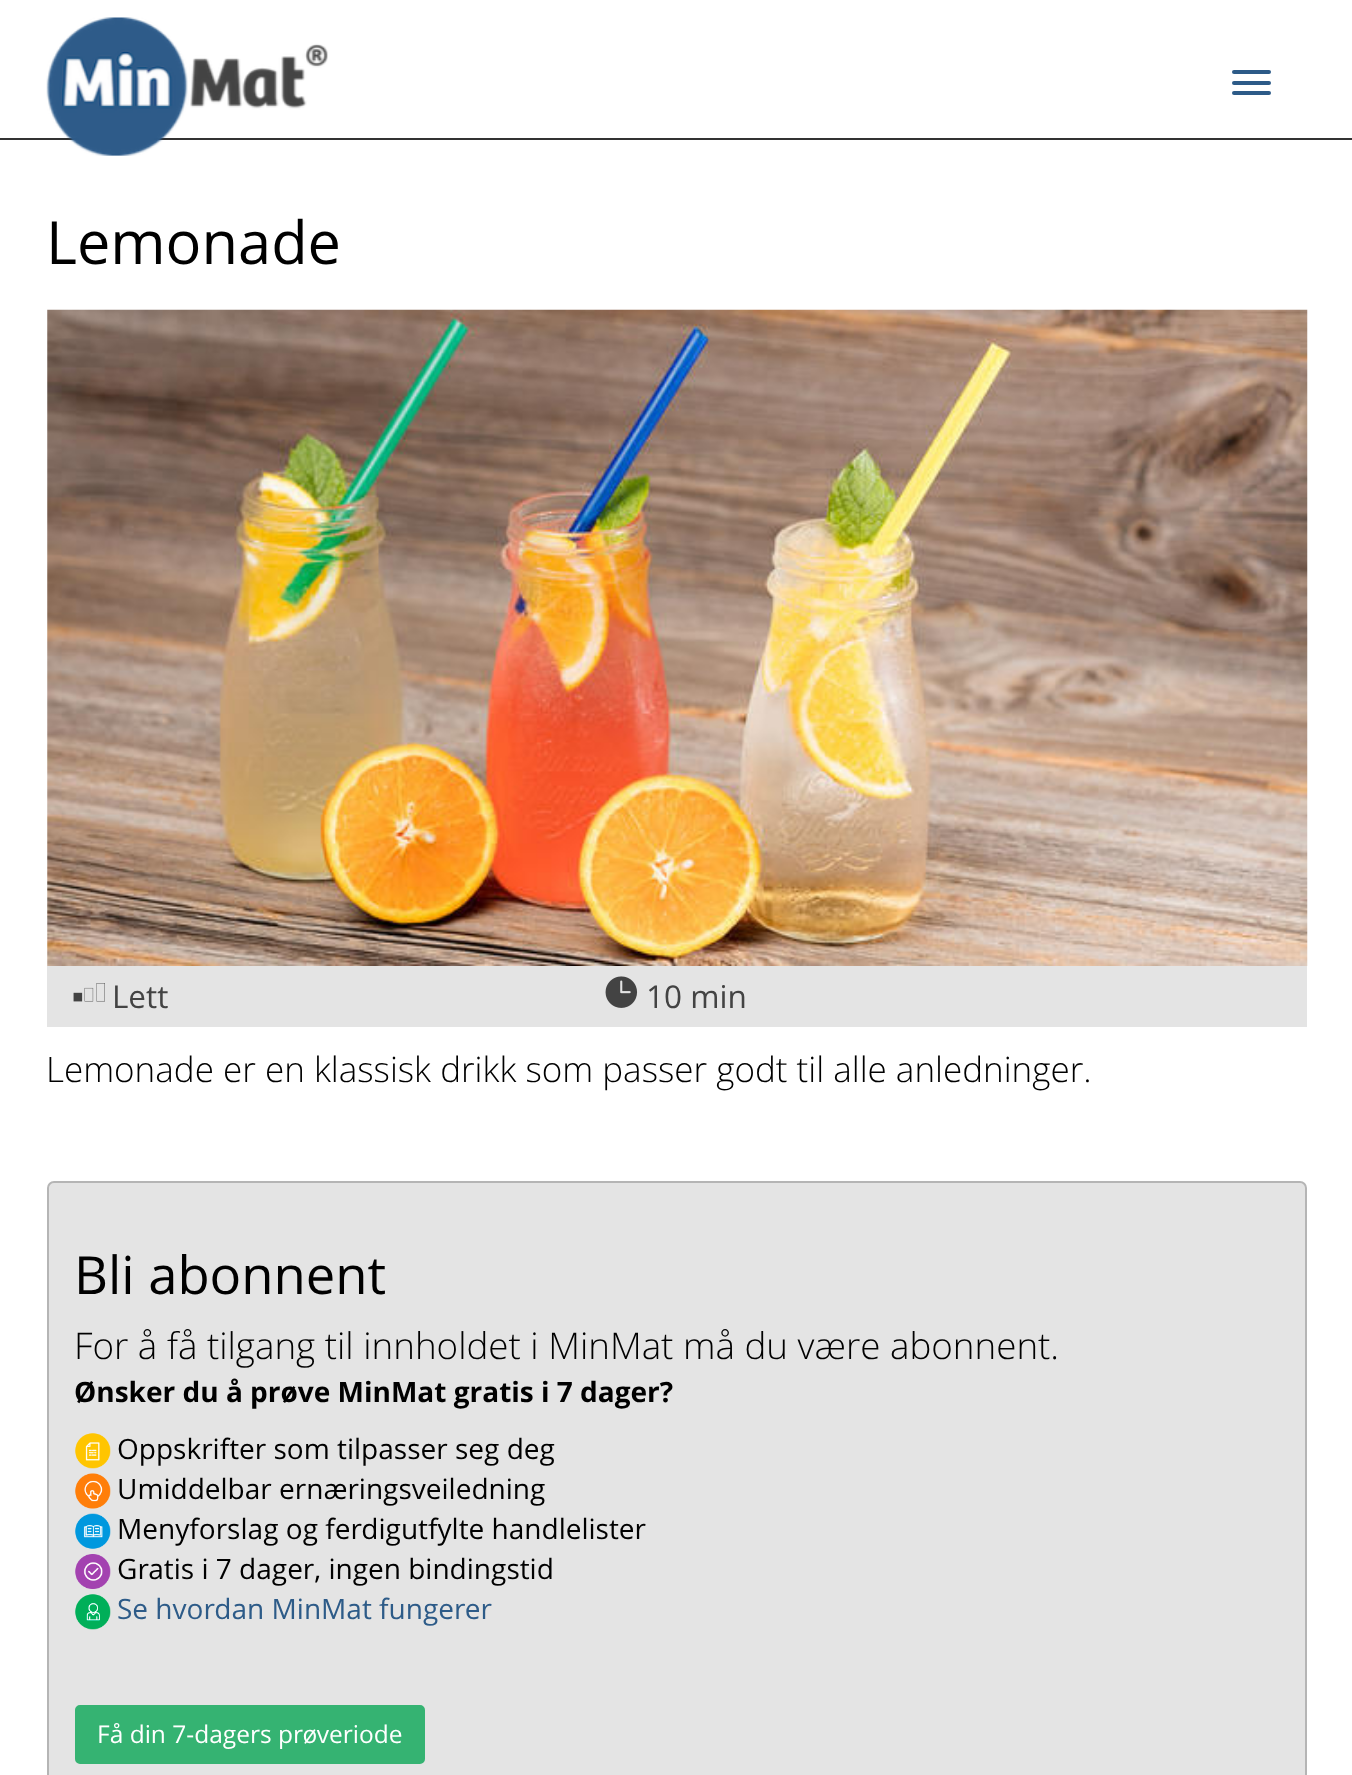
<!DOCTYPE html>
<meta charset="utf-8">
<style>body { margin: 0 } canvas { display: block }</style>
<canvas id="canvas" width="1352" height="1775"></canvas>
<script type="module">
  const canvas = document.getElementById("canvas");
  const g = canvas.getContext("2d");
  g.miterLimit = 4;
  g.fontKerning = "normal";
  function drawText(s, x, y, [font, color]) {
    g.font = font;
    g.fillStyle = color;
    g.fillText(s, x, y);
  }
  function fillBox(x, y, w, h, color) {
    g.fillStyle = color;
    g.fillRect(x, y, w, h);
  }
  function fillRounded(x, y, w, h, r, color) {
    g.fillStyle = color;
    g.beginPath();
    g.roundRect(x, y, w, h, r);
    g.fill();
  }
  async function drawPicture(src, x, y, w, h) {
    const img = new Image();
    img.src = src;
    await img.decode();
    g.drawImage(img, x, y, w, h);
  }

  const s1 = ["59.5px Open Sans", "#000000"];
  const s2 = ["31.5px Open Sans", "#434343"];
  const s3 = ["300 35px Open Sans", "#000000"];
  const s4 = ["52.5px Open Sans", "#000000"];
  const s5 = ["300 36.75px Open Sans", "#000000"];
  const s6 = ["bold 28px Open Sans", "#000000"];
  const s7 = ["28px Open Sans", "#000000"];
  const s8 = ["28px Open Sans", "#2D5B88"];
  const s9 = ["24.5px Open Sans", "#FFFFFF"];

  fillBox(0, 0, 1352, 1775, "#FFFFFF");
  fillBox(0, 138, 1352, 2, "#333333");
  await drawPicture("pic1.png", 46, 17, 282, 139);
  fillRounded(1232, 70, 39, 4, 2, "#2D5B88");
  fillRounded(1232, 81, 39, 4, 2, "#2D5B88");
  fillRounded(1232, 91, 39, 4, 2, "#2D5B88");
  drawText("Lemonade", 46, 264, s1);
  await drawPicture("pic2.png", 47, 309, 1261, 657);
  fillBox(47, 966, 1260, 61, "#E4E4E4");
  await drawPicture("pic3.png", 73, 983, 32, 19);
  drawText("Lett", 112, 1008, s2);
  await drawPicture("pic4.png", 605, 976, 33, 32);
  drawText("10 min", 646, 1008, s2);
  drawText("Lemonade er en klassisk drikk som passer godt til alle anledninger.", 46, 1082, s3);
  g.fillStyle = "#E4E4E4";
  g.beginPath();
  g.roundRect(48, 1182, 1258, 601, 6);
  g.fill();
  g.strokeStyle = "#B5B5B5";
  g.lineWidth = 2;
  g.stroke();
  drawText("Bli abonnent", 74, 1294, s4);
  drawText("For å få tilgang til innholdet i MinMat må du være abonnent.", 74, 1359, s5);
  drawText("Ønsker du å prøve MinMat gratis i 7 dager?", 74, 1402, s6);
  await drawPicture("pic5.png", 75, 1433, 36, 36);
  drawText("Oppskrifter som tilpasser seg deg", 117, 1459, s7);
  await drawPicture("pic6.png", 75, 1473, 36, 36);
  drawText("Umiddelbar ernæringsveiledning", 117, 1499, s7);
  await drawPicture("pic7.png", 75, 1513, 36, 36);
  drawText("Menyforslag og ferdigutfylte handlelister", 117, 1539, s7);
  await drawPicture("pic8.png", 75, 1554, 36, 35);
  drawText("Gratis i 7 dager, ingen bindingstid", 117, 1579, s7);
  await drawPicture("pic9.png", 75, 1594, 36, 36);
  drawText("Se hvordan MinMat fungerer", 117, 1619, s8);
  g.fillStyle = "#35B372";
  g.beginPath();
  g.roundRect(76, 1706, 348, 57, 4);
  g.fill();
  g.strokeStyle = "#35B372";
  g.stroke();
  drawText("Få din 7-dagers prøveriode", 97, 1743, s9);
</script>
